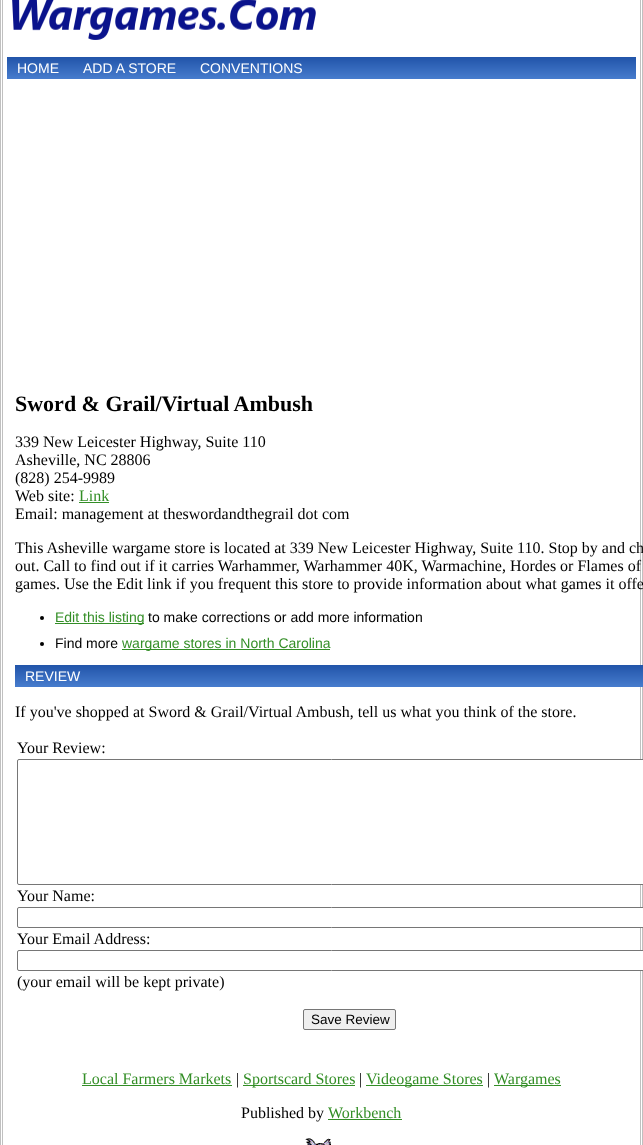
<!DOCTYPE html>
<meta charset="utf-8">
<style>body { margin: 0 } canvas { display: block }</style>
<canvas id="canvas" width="643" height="1145"></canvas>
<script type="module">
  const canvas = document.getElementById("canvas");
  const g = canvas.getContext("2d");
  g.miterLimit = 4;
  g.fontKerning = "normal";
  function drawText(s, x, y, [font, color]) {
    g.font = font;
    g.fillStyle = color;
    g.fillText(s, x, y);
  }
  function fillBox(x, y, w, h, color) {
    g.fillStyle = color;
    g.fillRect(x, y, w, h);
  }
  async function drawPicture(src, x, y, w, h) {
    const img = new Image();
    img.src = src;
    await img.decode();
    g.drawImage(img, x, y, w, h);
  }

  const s1 = ["14px Liberation Sans", "#FFFFFF"];
  const s2 = ["bold 22px Liberation Serif", "#000000"];
  const s3 = ["16px Liberation Serif", "#000000"];
  const s4 = ["16px Liberation Serif", "#338E26"];
  const s5 = ["14px Liberation Sans", "#338E26"];
  const s6 = ["14px Liberation Sans", "#000000"];
  const s7 = ["13.5px Liberation Sans", "#000000"];

  fillBox(0, 0, 643, 1145, "#FFFFFF");
  g.strokeStyle = "#C0C0C0";
  g.strokeRect(0.5, -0.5, 642, 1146);
  g.strokeRect(2.5, -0.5, 638, 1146);
  await drawPicture("pic1.png", 12, 0, 304, 40);
  await drawPicture("pic2.png", 7, 57, 629, 22);
  drawText("HOME", 17, 73, s1);
  drawText("ADD A STORE", 83, 73, s1);
  drawText("CONVENTIONS", 200, 73, s1);
  drawText("Sword & Grail/Virtual Ambush", 15, 411, s2);
  drawText("339 New Leicester Highway, Suite 110", 15, 447, s3);
  drawText("Asheville, NC 28806", 15, 465, s3);
  drawText("(828) 254-9989", 15, 483, s3);
  drawText("Web site:", 15, 501, s3);
  drawText("Link", 79, 501, s4);
  fillBox(79, 502, 30, 1, "#338E26");
  drawText("Email: management at theswordandthegrail dot com", 15, 519, s3);
  drawText("This Asheville wargame store is located at 339 New Leicester Highway, Suite 110. Stop by and ch", 15, 553, s3);
  drawText("out. Call to find out if it carries Warhammer, Warhammer 40K, Warmachine, Hordes or Flames of", 15, 571, s3);
  drawText("games. Use the Edit link if you frequent this store to provide information about what games it offe", 15, 589, s3);
  g.beginPath();
  g.arc(42, 618, 2, 0, Math.PI * 2);
  g.fill();
  fillBox(55, 623, 89, 1, "#338E26");
  drawText("Edit this listing", 55, 622, s5);
  drawText("to make corrections or add more information", 148, 622, s6);
  g.beginPath();
  g.arc(42, 644, 2, 0, Math.PI * 2);
  g.fill();
  drawText("Find more", 55, 648, s6);
  fillBox(122, 649, 208, 1, "#338E26");
  drawText("wargame stores in North Carolina", 122, 648, s5);
  await drawPicture("pic3.png", 15, 665, 628, 22);
  drawText("REVIEW", 25, 681, s1);
  drawText("If you've shopped at Sword & Grail/Virtual Ambush, tell us what you think of the store.", 15, 717, s3);
  drawText("Your Review:", 17, 753, s3);
  g.fillStyle = "#FFFFFF";
  g.beginPath();
  g.roundRect(17.5, 759.5, 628, 125, 1.5);
  g.fill();
  g.strokeStyle = "#767676";
  g.stroke();
  drawText("Your Name:", 17, 901, s3);
  g.fillStyle = "#FFFFFF";
  g.beginPath();
  g.roundRect(17.5, 907.5, 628, 20, 1.5);
  g.fill();
  g.stroke();
  drawText("Your Email Address:", 17, 944, s3);
  g.fillStyle = "#FFFFFF";
  g.beginPath();
  g.roundRect(17.5, 950.5, 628, 20, 1.5);
  g.fill();
  g.stroke();
  drawText("(your email will be kept private)", 17, 987, s3);
  g.fillStyle = "#EFEFEF";
  g.beginPath();
  g.roundRect(303.5, 1009.5, 92, 20, 1.5);
  g.fill();
  g.stroke();
  drawText("Save Review", 311, 1024, s7);
  drawText("Local Farmers Markets", 82, 1084, s4);
  fillBox(82, 1085, 150, 1, "#338E26");
  drawText("|", 236, 1084, s3);
  fillBox(243, 1085, 112, 1, "#338E26");
  drawText("Sportscard Stores", 243, 1084, s4);
  drawText("|", 359, 1084, s3);
  fillBox(366, 1085, 117, 1, "#338E26");
  drawText("Videogame Stores", 366, 1084, s4);
  drawText("|", 487, 1084, s3);
  fillBox(494, 1085, 67, 1, "#338E26");
  drawText("Wargames", 494, 1084, s4);
  drawText("Published by", 241, 1118, s3);
  drawText("Workbench", 328, 1118, s4);
  fillBox(328, 1119, 74, 1, "#338E26");
  await drawPicture("pic4.png", 305, 1138, 26, 7);
</script>
